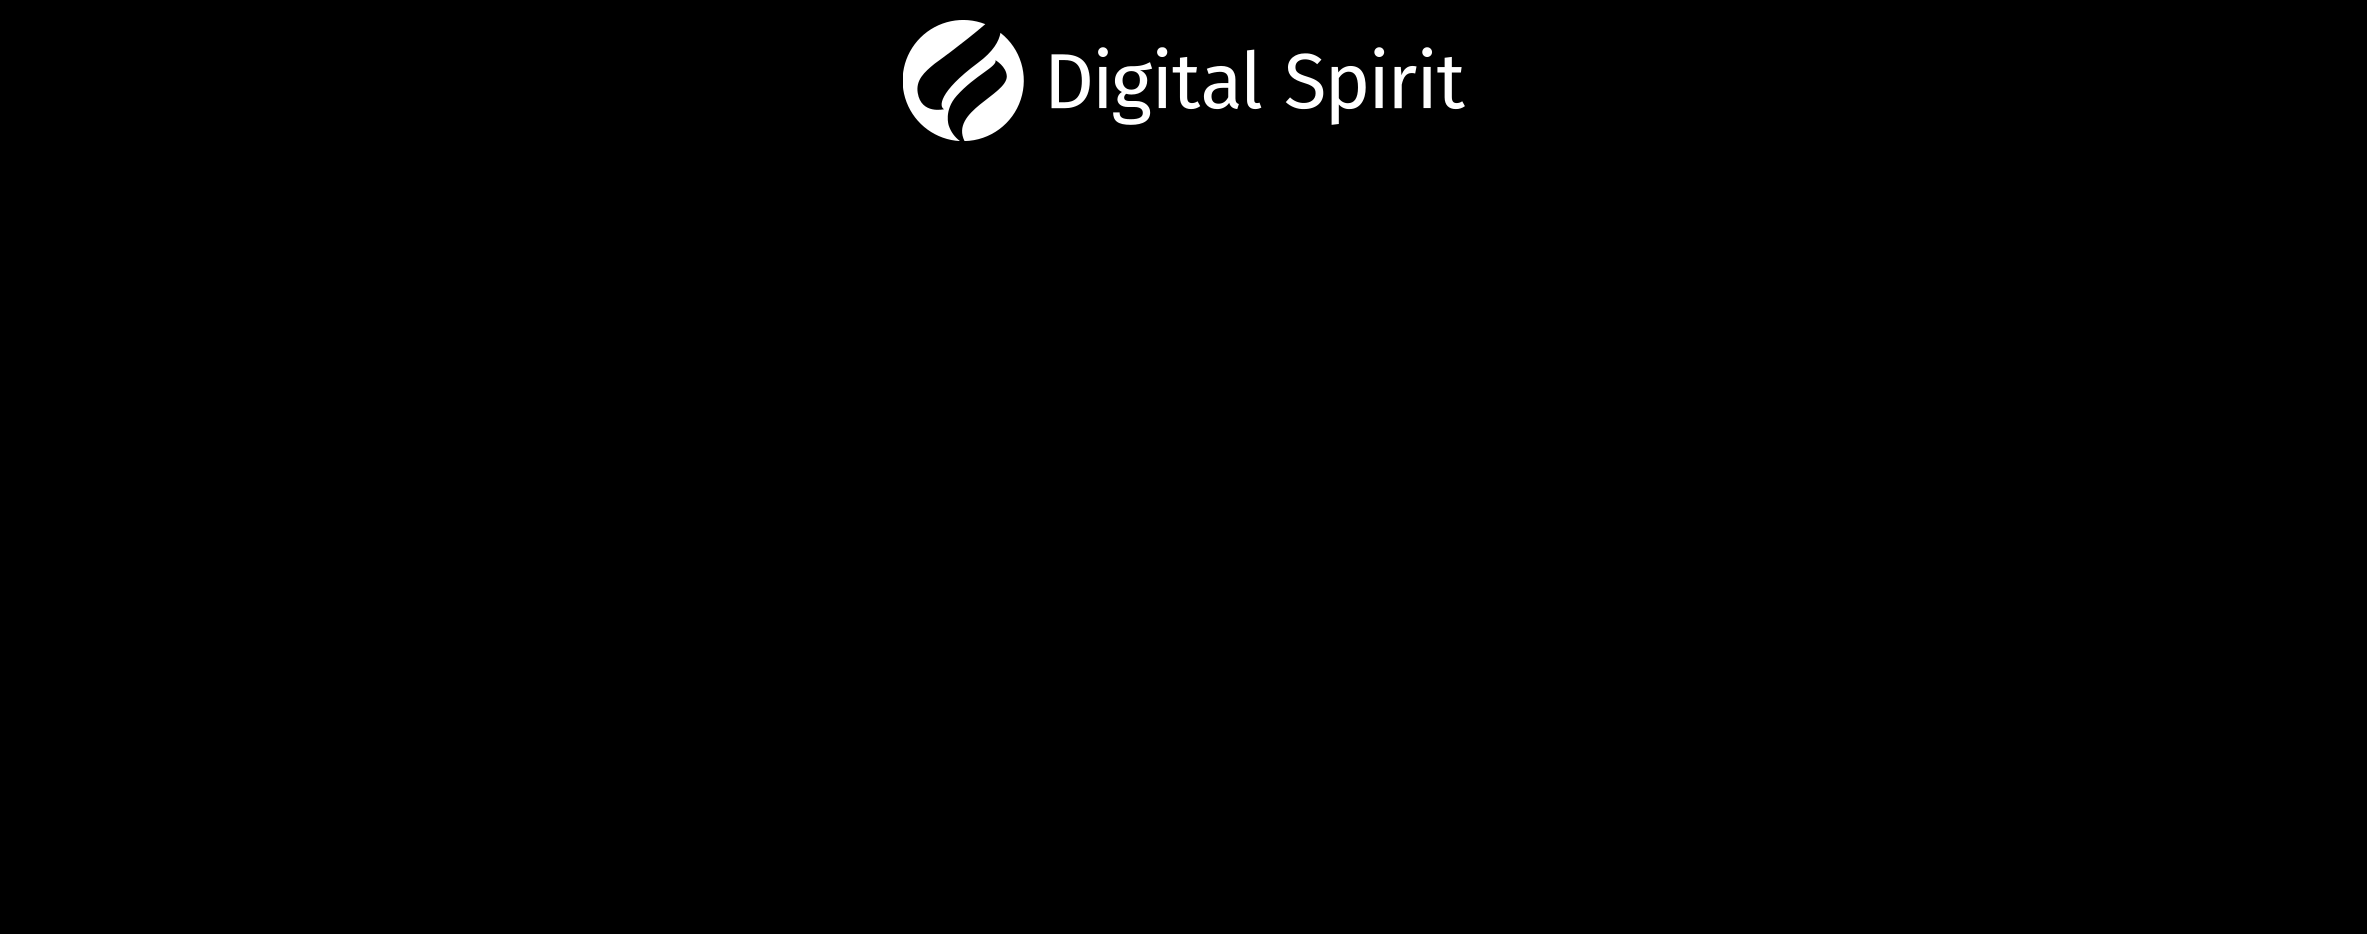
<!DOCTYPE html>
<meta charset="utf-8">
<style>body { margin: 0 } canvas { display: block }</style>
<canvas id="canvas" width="2367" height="934"></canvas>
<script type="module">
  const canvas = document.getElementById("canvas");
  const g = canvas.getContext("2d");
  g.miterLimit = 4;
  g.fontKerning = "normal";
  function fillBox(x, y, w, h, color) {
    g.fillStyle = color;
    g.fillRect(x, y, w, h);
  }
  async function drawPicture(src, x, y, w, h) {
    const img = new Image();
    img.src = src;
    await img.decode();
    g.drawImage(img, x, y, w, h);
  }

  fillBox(0, 0, 2367, 934, "#000000");
  await drawPicture("pic1.png", 903, 20, 562, 121);
</script>
